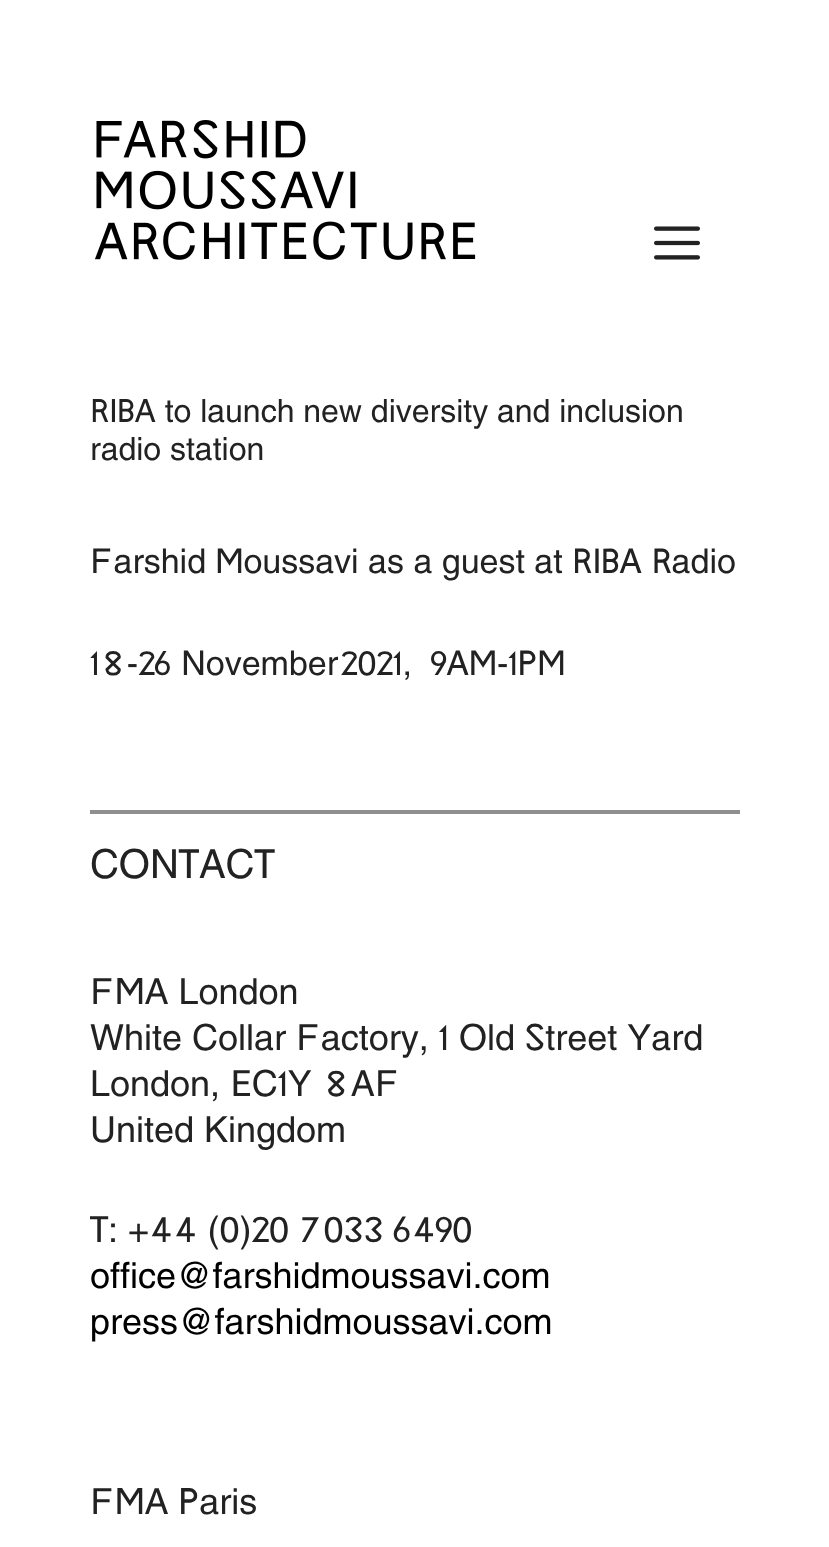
<!DOCTYPE html>
<meta charset="utf-8">
<style>body { margin: 0 } canvas { display: block }</style>
<canvas id="canvas" width="829" height="1547"></canvas>
<script type="module">
  const canvas = document.getElementById("canvas");
  const g = canvas.getContext("2d");
  g.miterLimit = 4;
  g.fontKerning = "normal";
  function drawText(s, x, y, [font, color]) {
    g.font = font;
    g.fillStyle = color;
    g.fillText(s, x, y);
  }
  function fillBox(x, y, w, h, color) {
    g.fillStyle = color;
    g.fillRect(x, y, w, h);
  }
  async function drawPicture(src, x, y, w, h) {
    const img = new Image();
    img.src = src;
    await img.decode();
    g.drawImage(img, x, y, w, h);
  }

  const s1 = ["500 32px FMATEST", "#222222"];
  const s2 = ["500 34px FMATEST", "#222222"];
  const s3 = ["500 40px FMATEST", "#222222"];
  const s4 = ["500 36px FMATEST", "#222222"];
  const s5 = ["500 36px FMATEST", "#000000"];

  fillBox(0, 0, 829, 1547, "#FFFFFF");
  await drawPicture("pic1.png", 95, 120, 381, 140);
  await drawPicture("pic2.png", 654, 226, 46, 34);
  drawText("RIBA to launch new diversity and inclusion", 90, 422, s1);
  drawText("radio station", 90, 460, s1);
  drawText("Farshid Moussavi as a guest at RIBA Radio", 90, 573, s2);
  drawText("18-26 November 2021,  9AM-1PM", 90, 675, s2);
  fillBox(90, 810, 650, 4, "#8F8F8F");
  drawText("CONTACT", 90, 878, s3);
  drawText("FMA London", 90, 1004, s4);
  drawText("White Collar Factory, 1 Old Street Yard", 90, 1050, s4);
  drawText("London, EC1Y 8AF", 90, 1096, s4);
  drawText("United Kingdom", 90, 1142, s4);
  drawText("T: +44 (0)20 7033 6490", 90, 1242, s4);
  drawText("office@farshidmoussavi.com", 90, 1288, s5);
  drawText("press@farshidmoussavi.com", 90, 1334, s5);
  drawText("FMA Paris", 90, 1514, s4);
</script>
